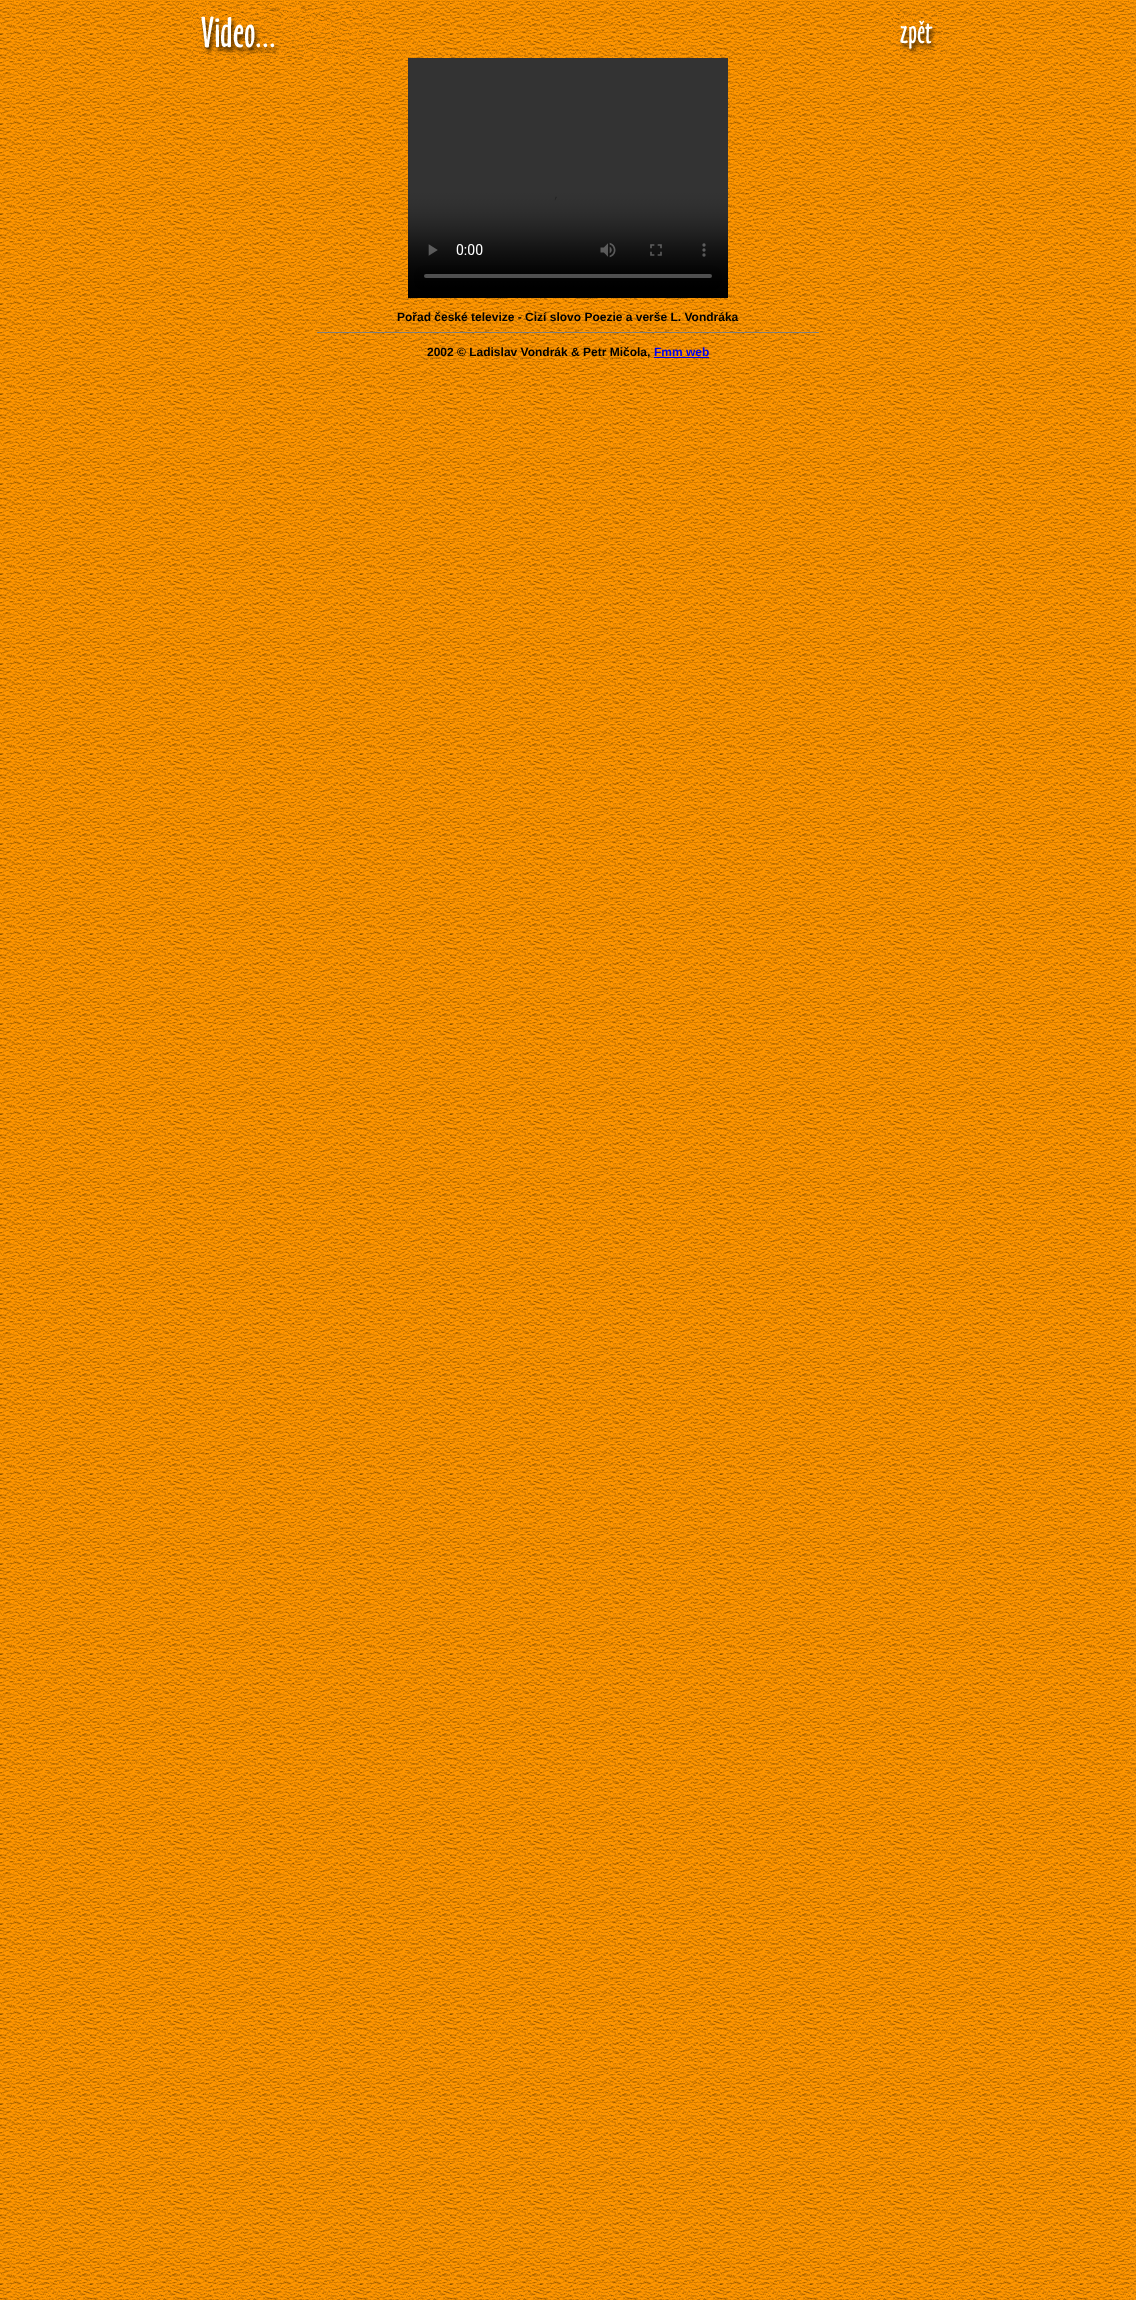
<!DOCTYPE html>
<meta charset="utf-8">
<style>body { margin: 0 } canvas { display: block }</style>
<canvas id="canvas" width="1136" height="2300"></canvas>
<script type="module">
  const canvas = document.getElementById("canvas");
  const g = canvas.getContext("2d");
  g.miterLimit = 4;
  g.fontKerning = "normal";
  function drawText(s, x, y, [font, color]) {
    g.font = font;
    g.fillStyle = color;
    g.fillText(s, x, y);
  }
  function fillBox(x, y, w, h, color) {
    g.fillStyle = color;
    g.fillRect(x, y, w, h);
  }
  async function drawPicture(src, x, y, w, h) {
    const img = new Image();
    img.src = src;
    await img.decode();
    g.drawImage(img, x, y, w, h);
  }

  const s1 = ["bold 12px Liberation Sans", "#000000"];
  const s2 = ["bold 12px Liberation Sans", "#0000EE"];

  fillBox(0, 0, 1136, 2300, "#FFFFFF");
  await drawPicture("pic1.png", 0, 0, 1136, 2300);
  await drawPicture("pic2.png", 193, 8, 180, 50);
  await drawPicture("pic3.png", 893, 13, 50, 40);
  await drawPicture("pic4.png", 408, 58, 320, 240);
  drawText("Pořad české televize - Cizí slovo Poezie a verše L. Vondráka", 397, 321, s1);
  fillBox(317, 332, 502, 1, "#808080");
  drawText("2002 © Ladislav Vondrák & Petr Mičola,", 427, 356, s1);
  drawText("Fmm web", 654, 356, s2);
  fillBox(654, 357, 55, 1, "#0000EE");
</script>
